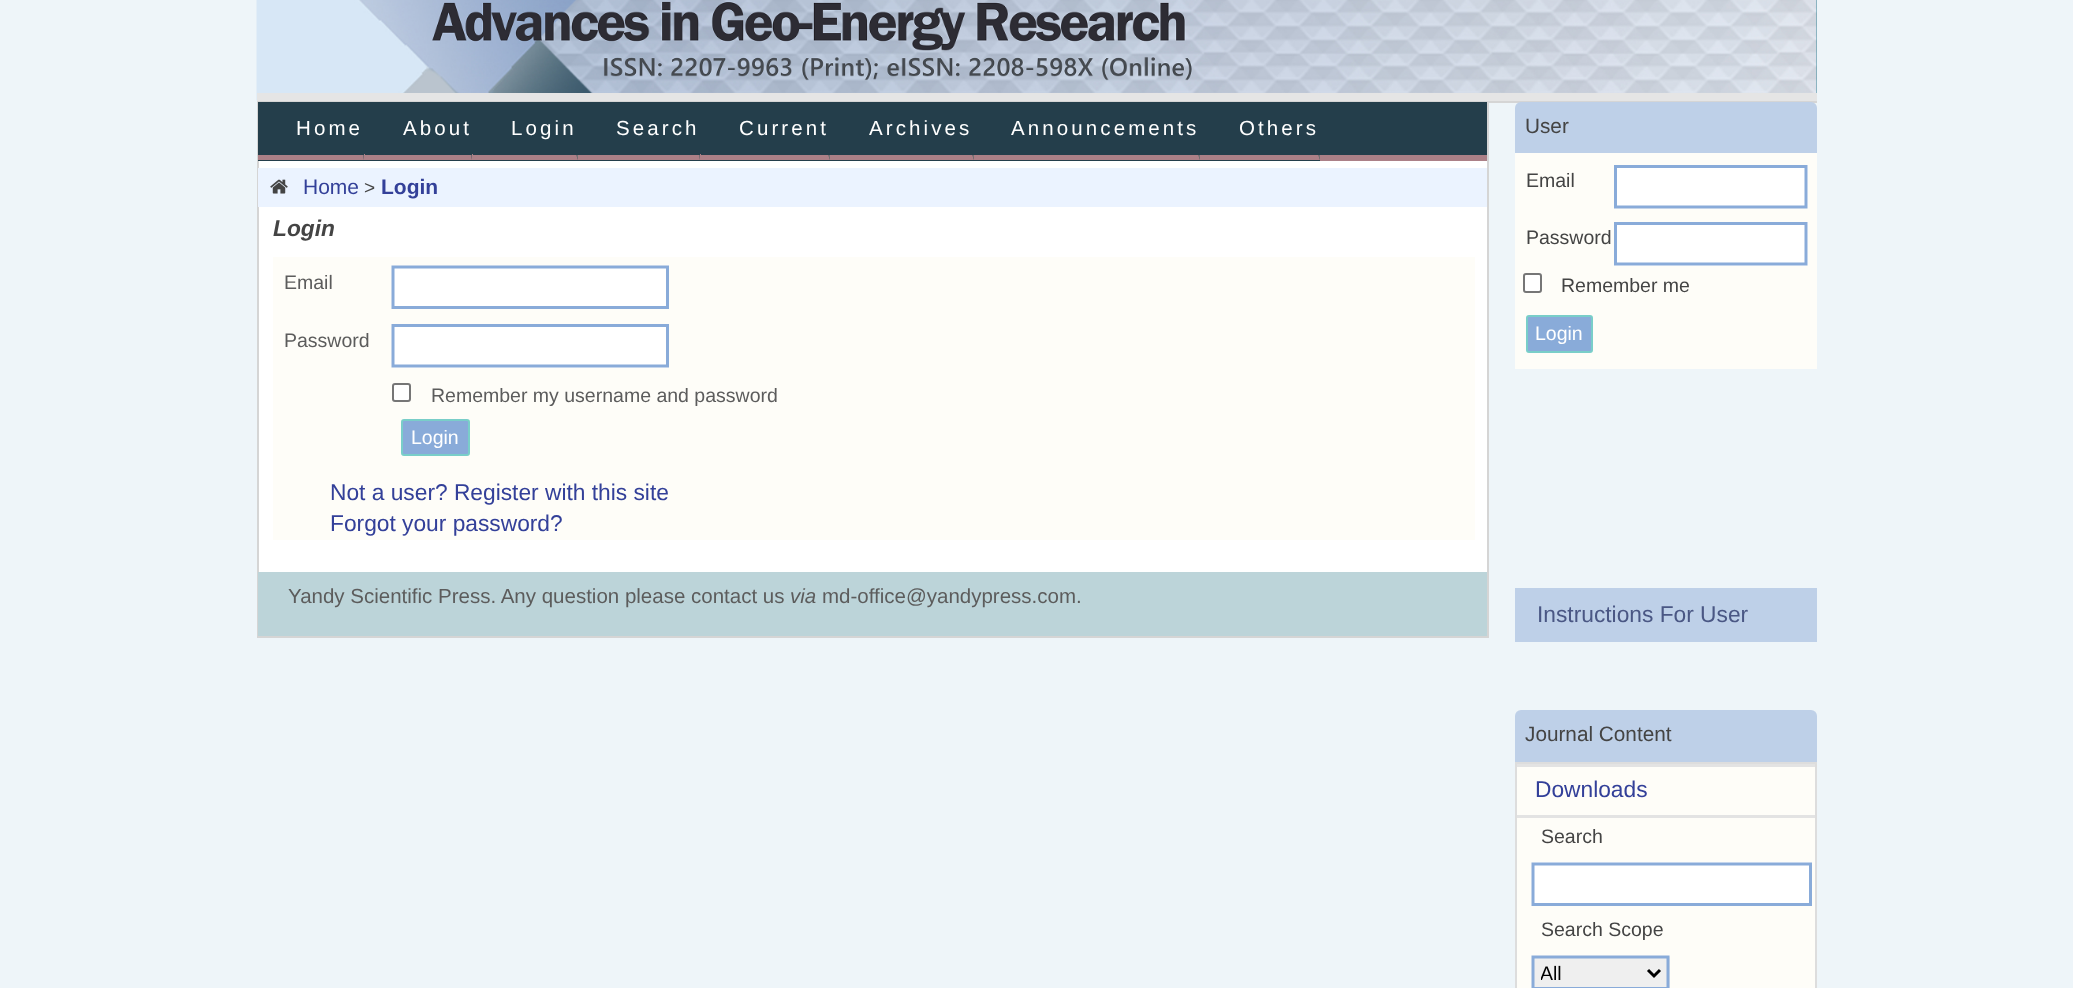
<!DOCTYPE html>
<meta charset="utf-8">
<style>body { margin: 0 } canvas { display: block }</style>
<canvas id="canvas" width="2073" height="988"></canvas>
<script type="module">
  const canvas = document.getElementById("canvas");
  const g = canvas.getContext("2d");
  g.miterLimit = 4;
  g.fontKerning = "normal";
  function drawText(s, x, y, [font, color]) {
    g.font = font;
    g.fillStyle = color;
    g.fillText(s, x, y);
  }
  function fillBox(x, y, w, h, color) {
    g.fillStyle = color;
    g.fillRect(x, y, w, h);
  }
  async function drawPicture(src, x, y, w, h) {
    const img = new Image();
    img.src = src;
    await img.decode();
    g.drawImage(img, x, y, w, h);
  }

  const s1 = ["20.5px Liberation Sans", "#FFFFFF"];
  const s2 = ["21px Liberation Sans", "#334099"];
  const s3 = ["19px Liberation Sans", "#444444"];
  const s4 = ["bold 21px Liberation Sans", "#334099"];
  const s5 = ["italic bold 22.75px Liberation Sans", "#444444"];
  const s6 = ["19.5px Liberation Sans", "#5C5C5C"];
  const s7 = ["19.5px Liberation Sans", "#FFFFFF"];
  const s8 = ["22.75px Liberation Sans", "#334099"];
  const s9 = ["20.5px Liberation Sans", "#5C5C5C"];
  const s10 = ["italic 20.5px Liberation Sans", "#5C5C5C"];
  const s11 = ["20.75px Liberation Sans", "#444444"];
  const s12 = ["19.5px Liberation Sans", "#444444"];
  const s13 = ["22.75px Liberation Sans", "#4A5784"];
  const s14 = ["19.5px Liberation Sans", "#000000"];

  fillBox(0, 0, 2073, 988, "#EEF5F9");
  fillBox(1816, 0, 1, 93, "#3A8798");
  fillBox(257, 101, 1560, 2, "#D5D5D5");
  await drawPicture("pic1.png", 256, 0, 1561, 101);
  fillBox(257, 93, 1560, 8, "#E5E5E5");
  fillBox(259, 161, 1228, 411, "#FFFFFF");
  fillBox(1487, 102, 2, 536, "#D5D5D5");
  fillBox(257, 636, 1231, 2, "#D5D5D5");
  fillBox(257, 102, 2, 536, "#D5D5D5");
  fillBox(1356, 102, 131, 53, "#243E4B");
  fillBox(1320, 155, 167, 6, "#AB8087");
  fillBox(258, 155, 1062, 6, "#243E4B");
  g.fillStyle = "#737373";
  g.beginPath();
  g.moveTo(364, 102);
  g.lineTo(364, 160);
  g.lineTo(363, 154);
  g.lineTo(363, 102);
  g.closePath();
  g.fill();
  g.fillStyle = "#AB8087";
  g.beginPath();
  g.moveTo(364, 160);
  g.lineTo(258, 160);
  g.lineTo(258, 154);
  g.lineTo(363, 154);
  g.closePath();
  g.fill();
  fillBox(258, 102, 107, 53, "#243E4B");
  g.letterSpacing = "3.1px";
  drawText("Home", 296, 135, s1);
  g.fillStyle = "#737373";
  g.beginPath();
  g.moveTo(472, 102);
  g.lineTo(472, 160);
  g.lineTo(471, 154);
  g.lineTo(471, 102);
  g.closePath();
  g.fill();
  g.fillStyle = "#AB8087";
  g.beginPath();
  g.moveTo(472, 160);
  g.lineTo(364, 160);
  g.lineTo(364, 154);
  g.lineTo(471, 154);
  g.closePath();
  g.fill();
  fillBox(365, 102, 108, 53, "#243E4B");
  drawText("About", 403, 135, s1);
  g.fillStyle = "#737373";
  g.beginPath();
  g.moveTo(578, 102);
  g.lineTo(578, 160);
  g.lineTo(576, 154);
  g.lineTo(576, 102);
  g.closePath();
  g.fill();
  g.fillStyle = "#AB8087";
  g.beginPath();
  g.moveTo(578, 160);
  g.lineTo(472, 160);
  g.lineTo(472, 154);
  g.lineTo(576, 154);
  g.closePath();
  g.fill();
  fillBox(473, 102, 105, 53, "#243E4B");
  drawText("Login", 511, 135, s1);
  g.fillStyle = "#737373";
  g.beginPath();
  g.moveTo(700, 102);
  g.lineTo(700, 160);
  g.lineTo(699, 154);
  g.lineTo(699, 102);
  g.closePath();
  g.fill();
  g.fillStyle = "#AB8087";
  g.beginPath();
  g.moveTo(700, 160);
  g.lineTo(578, 160);
  g.lineTo(578, 154);
  g.lineTo(699, 154);
  g.closePath();
  g.fill();
  fillBox(578, 102, 123, 53, "#243E4B");
  drawText("Search", 616, 135, s1);
  g.fillStyle = "#737373";
  g.beginPath();
  g.moveTo(830, 102);
  g.lineTo(830, 160);
  g.lineTo(828, 154);
  g.lineTo(828, 102);
  g.closePath();
  g.fill();
  g.fillStyle = "#AB8087";
  g.beginPath();
  g.moveTo(830, 160);
  g.lineTo(700, 160);
  g.lineTo(700, 154);
  g.lineTo(828, 154);
  g.closePath();
  g.fill();
  fillBox(701, 102, 129, 53, "#243E4B");
  drawText("Current", 739, 135, s1);
  g.fillStyle = "#737373";
  g.beginPath();
  g.moveTo(974, 102);
  g.lineTo(974, 160);
  g.lineTo(972, 154);
  g.lineTo(972, 102);
  g.closePath();
  g.fill();
  g.fillStyle = "#AB8087";
  g.beginPath();
  g.moveTo(974, 160);
  g.lineTo(830, 160);
  g.lineTo(830, 154);
  g.lineTo(972, 154);
  g.closePath();
  g.fill();
  fillBox(830, 102, 144, 53, "#243E4B");
  drawText("Archives", 869, 135, s1);
  g.fillStyle = "#737373";
  g.beginPath();
  g.moveTo(1200, 102);
  g.lineTo(1200, 160);
  g.lineTo(1198, 154);
  g.lineTo(1198, 102);
  g.closePath();
  g.fill();
  g.fillStyle = "#AB8087";
  g.beginPath();
  g.moveTo(1200, 160);
  g.lineTo(974, 160);
  g.lineTo(974, 154);
  g.lineTo(1198, 154);
  g.closePath();
  g.fill();
  fillBox(974, 102, 226, 53, "#243E4B");
  drawText("Announcements", 1011, 135, s1);
  g.fillStyle = "#737373";
  g.beginPath();
  g.moveTo(1320, 102);
  g.lineTo(1320, 160);
  g.lineTo(1318, 154);
  g.lineTo(1318, 102);
  g.closePath();
  g.fill();
  g.fillStyle = "#AB8087";
  g.beginPath();
  g.moveTo(1320, 160);
  g.lineTo(1200, 160);
  g.lineTo(1200, 154);
  g.lineTo(1318, 154);
  g.closePath();
  g.fill();
  fillBox(1200, 102, 156, 53, "#243E4B");
  drawText("Others", 1239, 135, s1);
  fillBox(258, 168, 1229, 39, "#EBF3FF");
  await drawPicture("pic2.png", 270, 179, 18, 15);
  g.letterSpacing = "0px";
  drawText("Home", 303, 194, s2);
  drawText(">", 364, 194, s3);
  drawText("Login", 381, 194, s4);
  drawText("Login", 273, 236, s5);
  fillBox(273, 257, 1202, 283, "#FEFDF8");
  drawText("Email", 284, 289, s6);
  g.fillStyle = "#FFFFFF";
  g.beginPath();
  g.moveTo(400, 266);
  g.lineTo(661, 266);
  g.bezierCurveTo(665, 266, 669, 266, 669, 267);
  g.lineTo(669, 308);
  g.bezierCurveTo(669, 308, 665, 309, 661, 309);
  g.lineTo(400, 309);
  g.bezierCurveTo(395, 309, 392, 308, 392, 308);
  g.lineTo(392, 267);
  g.bezierCurveTo(392, 266, 395, 266, 400, 266);
  g.closePath();
  g.fill();
  g.beginPath();
  g.moveTo(400, 267);
  g.lineTo(667.5, 267);
  g.lineTo(667.5, 307.5);
  g.lineTo(393, 307.5);
  g.lineTo(393, 267);
  g.closePath();
  g.strokeStyle = "#89ABD9";
  g.lineWidth = 3;
  g.stroke();
  drawText("Password", 284, 347, s6);
  g.fillStyle = "#FFFFFF";
  g.beginPath();
  g.moveTo(400, 324);
  g.lineTo(661, 324);
  g.bezierCurveTo(665, 324, 669, 325, 669, 325);
  g.lineTo(669, 366);
  g.bezierCurveTo(669, 367, 665, 368, 661, 368);
  g.lineTo(400, 368);
  g.bezierCurveTo(395, 368, 392, 367, 392, 366);
  g.lineTo(392, 325);
  g.bezierCurveTo(392, 325, 395, 324, 400, 324);
  g.closePath();
  g.fill();
  g.beginPath();
  g.moveTo(400, 325.5);
  g.lineTo(667.5, 325.5);
  g.lineTo(667.5, 366);
  g.lineTo(393, 366);
  g.lineTo(393, 325.5);
  g.closePath();
  g.stroke();
  g.beginPath();
  g.roundRect(393, 384, 17, 17, 2);
  g.fill();
  g.strokeStyle = "#767676";
  g.lineWidth = 2;
  g.stroke();
  drawText("Remember my username and password", 431, 402, s6);
  g.fillStyle = "#89ABD9";
  g.beginPath();
  g.roundRect(402, 420, 67, 35, 2);
  g.fill();
  g.strokeStyle = "#79CEC9";
  g.stroke();
  drawText("Login", 411, 444, s7);
  drawText("Not a user? Register with this site", 330, 500, s8);
  drawText("Forgot your password?", 330, 531, s8);
  fillBox(258, 572, 1229, 64, "#BCD4D9");
  drawText("Yandy Scientific Press. Any question please contact us", 288, 603, s9);
  drawText("via", 790, 603, s10);
  drawText("md-office@yandypress.com.", 822, 603, s9);
  g.fillStyle = "#BED0E8";
  g.beginPath();
  g.roundRect(1515, 102, 302, 51, [6, 6, 0, 0]);
  g.fill();
  drawText("User", 1525, 133, s11);
  fillBox(1515, 153, 302, 216, "#FEFDF8");
  drawText("Email", 1526, 187, s12);
  g.fillStyle = "#FFFFFF";
  g.beginPath();
  g.moveTo(1620, 165);
  g.lineTo(1802, 165);
  g.bezierCurveTo(1805, 165, 1808, 166, 1808, 166);
  g.lineTo(1808, 207);
  g.bezierCurveTo(1808, 208, 1805, 208, 1802, 208);
  g.lineTo(1620, 208);
  g.bezierCurveTo(1617, 208, 1614, 208, 1614, 207);
  g.lineTo(1614, 166);
  g.bezierCurveTo(1614, 166, 1617, 165, 1620, 165);
  g.closePath();
  g.fill();
  g.beginPath();
  g.moveTo(1620, 166.5);
  g.lineTo(1806, 166.5);
  g.lineTo(1806, 207);
  g.lineTo(1615.5, 207);
  g.lineTo(1615.5, 166.5);
  g.closePath();
  g.strokeStyle = "#89ABD9";
  g.lineWidth = 3;
  g.stroke();
  drawText("Password", 1526, 244, s12);
  g.fillStyle = "#FFFFFF";
  g.beginPath();
  g.moveTo(1620, 222);
  g.lineTo(1802, 222);
  g.bezierCurveTo(1805, 222, 1808, 223, 1808, 223);
  g.lineTo(1808, 264);
  g.bezierCurveTo(1808, 265, 1805, 266, 1802, 266);
  g.lineTo(1620, 266);
  g.bezierCurveTo(1617, 266, 1614, 265, 1614, 264);
  g.lineTo(1614, 223);
  g.bezierCurveTo(1614, 223, 1617, 222, 1620, 222);
  g.closePath();
  g.fill();
  g.beginPath();
  g.moveTo(1620, 223.5);
  g.lineTo(1806, 223.5);
  g.lineTo(1806, 264);
  g.lineTo(1615.5, 264);
  g.lineTo(1615.5, 223.5);
  g.closePath();
  g.stroke();
  g.beginPath();
  g.roundRect(1524, 274, 17, 18, 2);
  g.fill();
  g.strokeStyle = "#767676";
  g.lineWidth = 2;
  g.stroke();
  drawText("Remember me", 1561, 292, s12);
  g.fillStyle = "#89ABD9";
  g.beginPath();
  g.roundRect(1527, 316, 65, 36, 2);
  g.fill();
  g.strokeStyle = "#79CEC9";
  g.stroke();
  drawText("Login", 1535, 340, s7);
  fillBox(1515, 588, 302, 54, "#BED0E8");
  drawText("Instructions For User", 1537, 622, s13);
  g.fillStyle = "#BED0E8";
  g.beginPath();
  g.roundRect(1515, 710, 302, 52, [6, 6, 0, 0]);
  g.fill();
  drawText("Journal Content", 1525, 741, s11);
  fillBox(1517, 767, 298, 221, "#FEFDF8");
  g.strokeStyle = "#DDDDDD";
  g.strokeRect(1516, 763, 300, 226);
  fillBox(1517, 764, 298, 3, "#E3E3E3");
  drawText("Downloads", 1535, 797, s8);
  fillBox(1517, 815, 298, 3, "#E3E3E3");
  drawText("Search", 1541, 843, s12);
  g.fillStyle = "#FFFFFF";
  g.beginPath();
  g.moveTo(1540, 862);
  g.lineTo(1804, 862);
  g.bezierCurveTo(1808, 862, 1812, 863, 1812, 864);
  g.lineTo(1812, 905);
  g.bezierCurveTo(1812, 905, 1808, 906, 1804, 906);
  g.lineTo(1540, 906);
  g.bezierCurveTo(1535, 906, 1532, 905, 1532, 905);
  g.lineTo(1532, 864);
  g.bezierCurveTo(1532, 863, 1535, 862, 1540, 862);
  g.closePath();
  g.fill();
  g.beginPath();
  g.moveTo(1540, 864);
  g.lineTo(1810.5, 864);
  g.lineTo(1810.5, 904.5);
  g.lineTo(1533, 904.5);
  g.lineTo(1533, 864);
  g.closePath();
  g.strokeStyle = "#89ABD9";
  g.lineWidth = 3;
  g.stroke();
  drawText("Search Scope", 1541, 936, s12);
  g.fillStyle = "#EFEFEF";
  g.beginPath();
  g.moveTo(1536, 956);
  g.lineTo(1665, 956);
  g.bezierCurveTo(1668, 956, 1670, 956, 1670, 957);
  g.lineTo(1670, 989);
  g.bezierCurveTo(1670, 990, 1668, 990, 1665, 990);
  g.lineTo(1536, 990);
  g.bezierCurveTo(1533, 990, 1532, 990, 1532, 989);
  g.lineTo(1532, 957);
  g.bezierCurveTo(1532, 956, 1533, 956, 1536, 956);
  g.closePath();
  g.fill();
  g.beginPath();
  g.moveTo(1535.5, 957);
  g.lineTo(1668, 957);
  g.lineTo(1668, 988.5);
  g.lineTo(1533, 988.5);
  g.lineTo(1533, 957);
  g.closePath();
  g.stroke();
  g.beginPath();
  g.moveTo(1648, 970);
  g.lineTo(1654, 976);
  g.lineTo(1660, 970);
  g.strokeStyle = "#000000";
  g.stroke();
  g.save();
  g.beginPath();
  g.rect(1541, 960, 102, 26);
  g.clip();
  drawText("All", 1540, 980, s14);
  g.restore();
</script>
